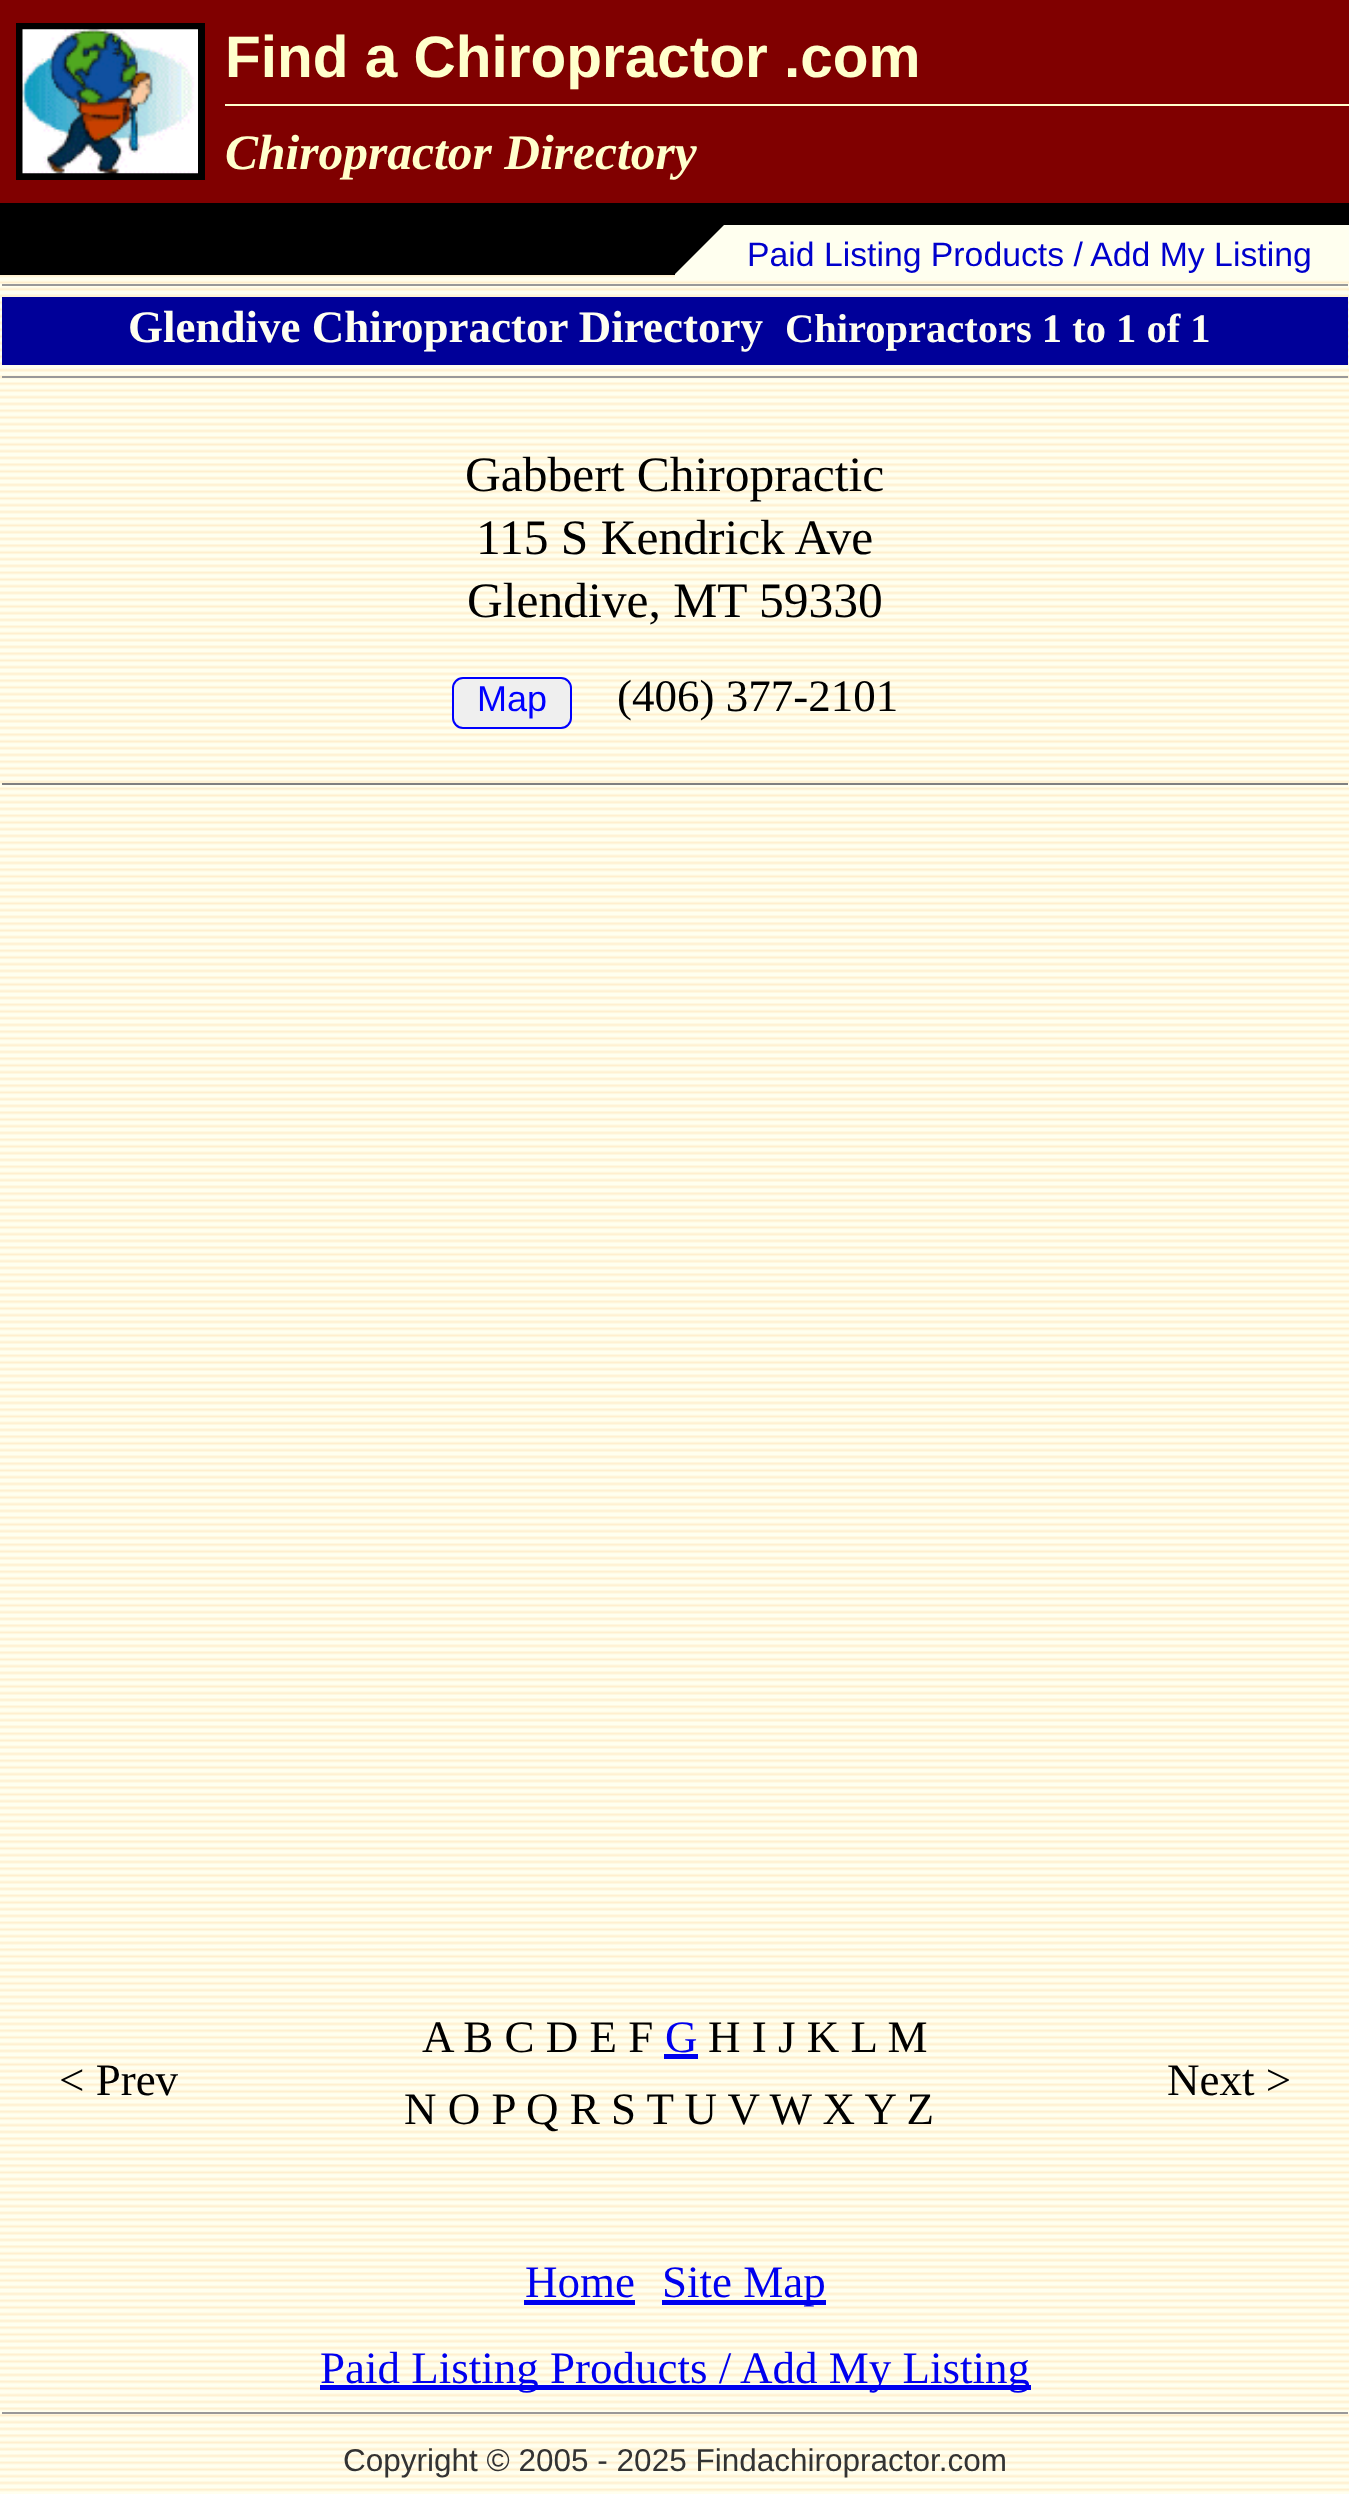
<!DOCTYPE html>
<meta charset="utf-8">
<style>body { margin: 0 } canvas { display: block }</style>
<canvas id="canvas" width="1349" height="2494"></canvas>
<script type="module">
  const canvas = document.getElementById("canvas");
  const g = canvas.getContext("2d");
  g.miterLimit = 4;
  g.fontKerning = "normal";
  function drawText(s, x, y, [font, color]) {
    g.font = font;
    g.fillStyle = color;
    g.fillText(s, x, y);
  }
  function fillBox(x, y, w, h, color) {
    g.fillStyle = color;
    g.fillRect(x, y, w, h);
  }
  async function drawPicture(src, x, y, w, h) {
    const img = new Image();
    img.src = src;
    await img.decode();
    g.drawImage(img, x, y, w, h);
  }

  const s1 = ["bold 58.5px Liberation Sans", "#FFFFCC"];
  const s2 = ["italic bold 49.5px Liberation Serif", "#FFFFCC"];
  const s3 = ["33.75px Liberation Sans", "#0000CC"];
  const s4 = ["bold 45px Liberation Serif", "#FFFFF0"];
  const s5 = ["bold 40.5px Liberation Serif", "#FFFFF0"];
  const s6 = ["49.5px Liberation Serif", "#000000"];
  const s7 = ["36px Liberation Sans", "#0000FF"];
  const s8 = ["45px Liberation Serif", "#000000"];
  const s9 = ["45px Liberation Serif", "#0000EE"];
  const s10 = ["31.5px Liberation Sans", "#333333"];

  fillBox(0, 0, 1349, 2494, "#FFFFF0");
  await drawPicture("pic1.png", 0, 275, 1349, 2217);
  fillBox(0, 203, 1349, 72, "#000000");
  fillBox(0, 0, 1349, 203, "#800000");
  g.strokeStyle = "#000000";
  g.lineWidth = 7;
  g.strokeRect(19.5, 26.5, 182, 150);
  await drawPicture("pic2.png", 22, 29, 176, 145);
  drawText("Find a Chiropractor .com", 225, 77, s1);
  fillBox(225, 104, 1124, 2, "#FFFFCC");
  drawText("Chiropractor Directory", 225, 169, s2);
  fillBox(675, 225, 674, 53, "#FFFFEF");
  g.fillStyle = "#000000";
  g.beginPath();
  g.moveTo(675, 225);
  g.lineTo(724, 225);
  g.lineTo(675, 274);
  g.closePath();
  g.fill();
  drawText("Paid Listing Products / Add My Listing", 747, 266, s3);
  fillBox(2, 284, 1346, 2, "#999999");
  fillBox(2, 297, 1346, 68, "#000099");
  drawText("Glendive Chiropractor Directory", 128, 342, s4);
  drawText("Chiropractors 1 to 1 of 1", 785, 342, s5);
  fillBox(2, 376, 1346, 2, "#999999");
  fillBox(2, 783, 1346, 2, "#808080");
  drawText("Gabbert Chiropractic", 465, 491, s6);
  drawText("115 S Kendrick Ave", 476, 554, s6);
  drawText("Glendive, MT 59330", 467, 617, s6);
  g.fillStyle = "#EFEFEF";
  g.beginPath();
  g.roundRect(453, 678, 118, 50, 10);
  g.fill();
  g.strokeStyle = "#0000FF";
  g.lineWidth = 2;
  g.stroke();
  drawText("Map", 477, 711, s7);
  drawText("(406) 377-2101", 617, 711, s8);
  drawText("< Prev", 59, 2095, s8);
  drawText("A B C D E F", 422, 2052, s8);
  drawText("G", 665, 2052, s9);
  fillBox(664, 2054, 34, 5, "#0000EE");
  drawText("H I J K L M", 708, 2052, s8);
  drawText("N O P Q R S T U V W X Y Z", 404, 2124, s8);
  drawText("Next >", 1167, 2095, s8);
  drawText("Home", 525, 2297, s9);
  fillBox(524, 2300, 111, 5, "#0000EE");
  fillBox(662, 2300, 164, 5, "#0000EE");
  drawText("Site Map", 662, 2297, s9);
  fillBox(320, 2385, 711, 5, "#0000EE");
  drawText("Paid Listing Products / Add My Listing", 320, 2383, s9);
  fillBox(2, 2412, 1346, 2, "#999999");
  drawText("Copyright © 2005 - 2025 Findachiropractor.com", 343, 2471, s10);
</script>
